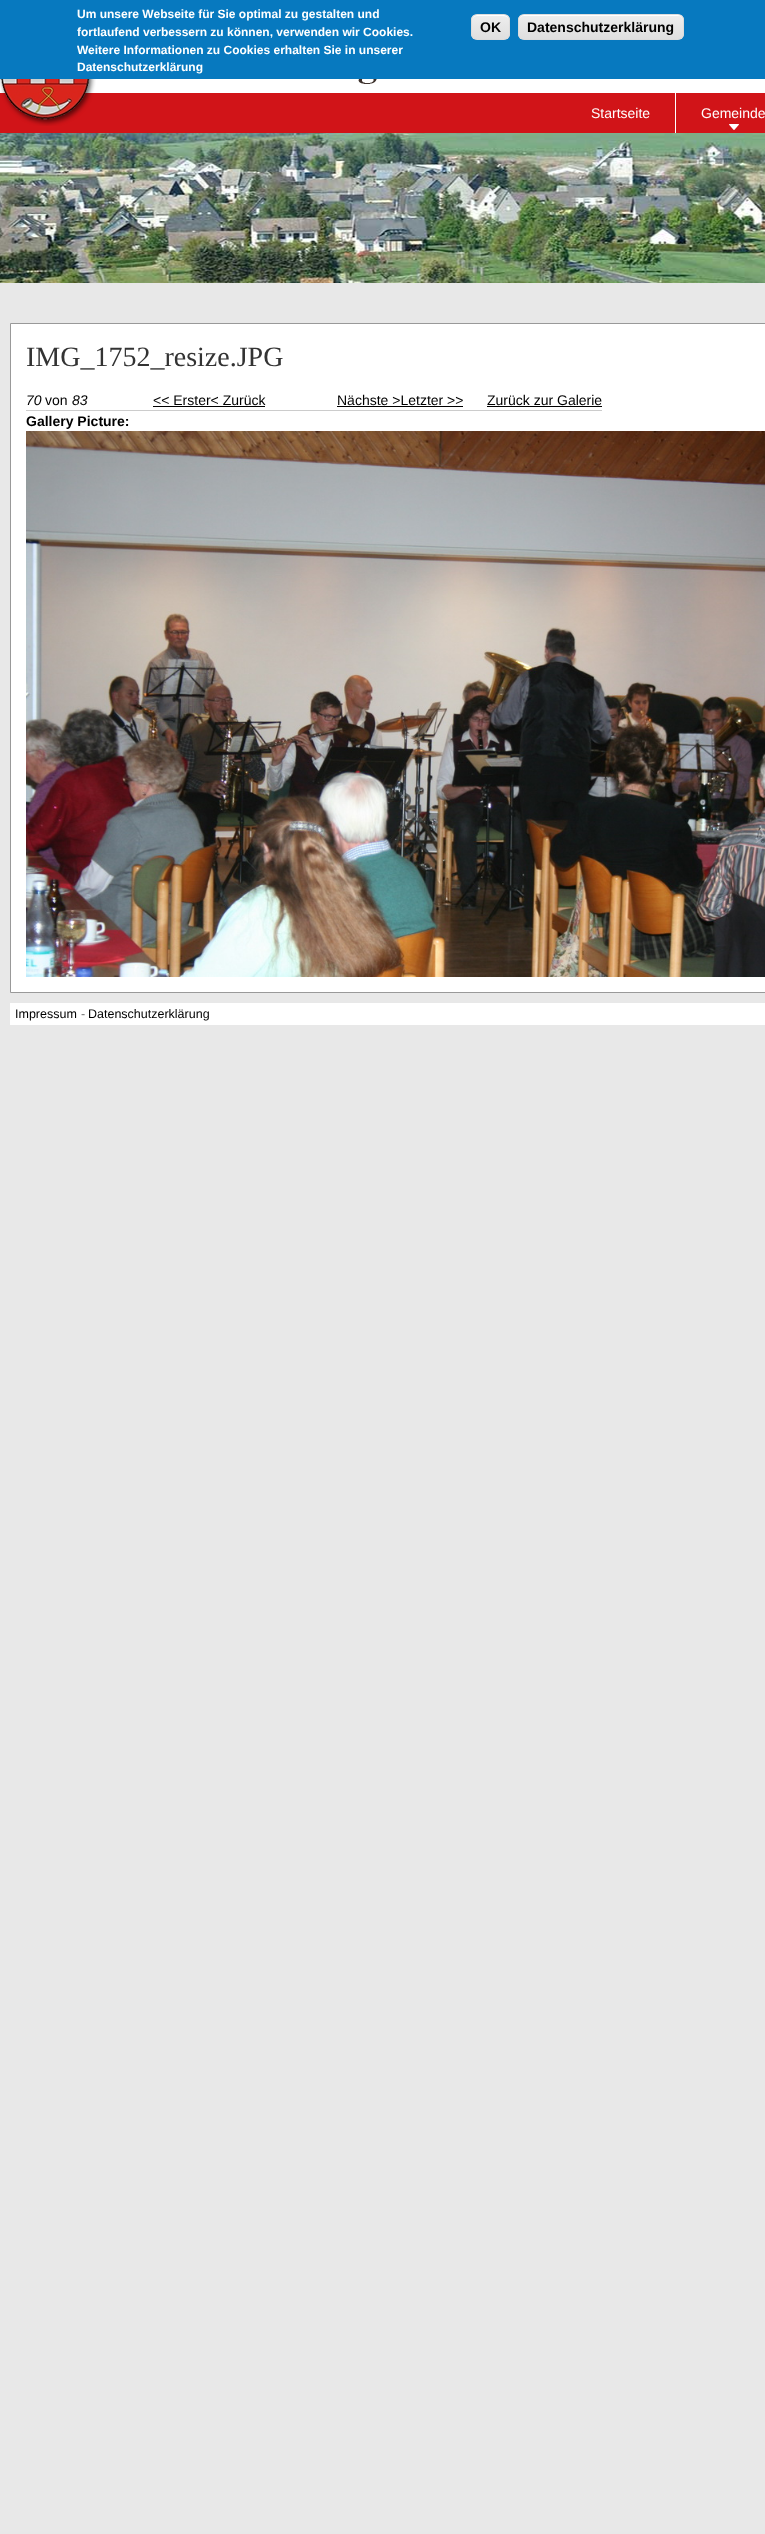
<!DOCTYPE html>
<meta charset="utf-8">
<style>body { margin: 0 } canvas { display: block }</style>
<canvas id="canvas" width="765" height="2534"></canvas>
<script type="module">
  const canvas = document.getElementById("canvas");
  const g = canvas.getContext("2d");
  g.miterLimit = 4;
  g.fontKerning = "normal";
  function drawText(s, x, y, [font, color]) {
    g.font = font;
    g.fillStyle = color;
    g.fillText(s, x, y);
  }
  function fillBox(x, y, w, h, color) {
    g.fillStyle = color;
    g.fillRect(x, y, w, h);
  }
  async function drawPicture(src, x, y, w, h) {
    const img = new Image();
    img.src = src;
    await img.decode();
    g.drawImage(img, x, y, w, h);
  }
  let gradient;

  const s1 = ["bold 12px Liberation Sans", "#FFFFFF"];
  const s2 = ["bold 14px Liberation Sans", "#000000"];
  const s3 = ["14px Liberation Sans", "#FFFFFF"];
  const s4 = ["28px Liberation Serif", "#333333"];
  const s5 = ["italic 14px Liberation Sans", "#000000"];
  const s6 = ["14px Liberation Sans", "#000000"];
  const s7 = ["12.5px Liberation Sans", "#000000"];
  const s8 = ["12.5px Liberation Sans", "#696969"];

  fillBox(0, 0, 765, 2534, "#E8E8E8");
  fillBox(0, 0, 765, 79, "#0779BF");
  drawText("Um unsere Webseite für Sie optimal zu gestalten und", 77, 18, s1);
  drawText("fortlaufend verbessern zu können, verwenden wir Cookies.", 77, 36, s1);
  drawText("Weitere Informationen zu Cookies erhalten Sie in unserer", 77, 54, s1);
  drawText("Datenschutzerklärung", 77, 71, s1);
  g.save();
  g.beginPath();
  g.roundRect(471, 14, 39, 26, 6);
  g.clip();
  gradient = g.createLinearGradient(491, 15, 491, 39);
  gradient.addColorStop(0.05, "#EDEDED");
  gradient.addColorStop(1, "#DFDFDF");
  g.fillStyle = gradient;
  g.fillRect(471, 15, 39, 24);
  g.restore();
  g.beginPath();
  g.moveTo(477, 16);
  g.lineTo(500, 16);
  g.bezierCurveTo(507.5, 16, 509, 17, 509, 22);
  g.bezierCurveTo(509, 15, 506, 15, 499.5, 15);
  g.lineTo(481.5, 15);
  g.bezierCurveTo(474.5, 15, 472, 15, 472, 22.5);
  g.bezierCurveTo(472, 19, 473, 16, 477, 16);
  g.closePath();
  g.moveTo(509, 33.5);
  g.lineTo(508.5, 35.5);
  g.closePath();
  g.moveTo(472, 35);
  g.lineTo(472, 33.5);
  g.closePath();
  g.fill("evenodd");
  g.beginPath();
  g.roundRect(471.5, 14.5, 38, 25, 5.5);
  g.strokeStyle = "#DCDCDC";
  g.stroke();
  drawText("OK", 480, 32, s2);
  g.save();
  g.beginPath();
  g.roundRect(518, 14, 166, 26, 6);
  g.clip();
  gradient = g.createLinearGradient(601, 15, 601, 39);
  gradient.addColorStop(0.05, "#EDEDED");
  gradient.addColorStop(1, "#DFDFDF");
  g.fillStyle = gradient;
  g.fillRect(518, 15, 166, 24);
  g.restore();
  g.fillStyle = "#FFFFFF";
  g.beginPath();
  g.moveTo(524, 16);
  g.lineTo(678, 16);
  g.bezierCurveTo(681, 16, 683, 18, 683, 21);
  g.lineTo(683, 20);
  g.bezierCurveTo(683, 17, 681, 15, 678, 15);
  g.lineTo(524, 15);
  g.bezierCurveTo(521, 15, 519, 17, 519, 20);
  g.lineTo(519, 21);
  g.bezierCurveTo(519, 18, 521, 16, 524, 16);
  g.closePath();
  g.fill();
  g.beginPath();
  g.roundRect(518.5, 14.5, 165, 25, 5.5);
  g.stroke();
  drawText("Datenschutzerklärung", 527, 32, s2);
  fillBox(0, 79, 765, 14, "#FFFFFF");
  fillBox(0, 93, 765, 40, "#D11418");
  await drawPicture("pic1.png", 0, 79, 96, 47);
  await drawPicture("pic2.png", 358, 79, 19, 5);
  fillBox(675, 93, 1, 40, "#FFFFFF");
  drawText("Startseite", 591, 118, s3);
  await drawPicture("pic3.png", 729, 124, 10, 6);
  drawText("Gemeinde", 701, 118, s3);
  await drawPicture("pic4.png", 0, 133, 765, 150);
  g.beginPath();
  g.rect(10.5, 323.5, 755, 669);
  g.fill();
  g.strokeStyle = "#999999";
  g.stroke();
  drawText("IMG_1752_resize.JPG", 26, 366, s4);
  fillBox(26, 410, 576, 1, "#CCCCCC");
  drawText("70", 26, 405, s5);
  drawText("von", 45, 405, s6);
  drawText("83", 72, 405, s5);
  drawText("<< Erster< Zurück", 153, 405, s6);
  fillBox(153, 406, 112, 1, "#000000");
  drawText("Nächste >Letzter >>", 337, 405, s6);
  fillBox(337, 406, 126, 1, "#000000");
  drawText("Zurück zur Galerie", 487, 405, s6);
  fillBox(487, 406, 115, 1, "#000000");
  drawText("Gallery Picture:", 26, 426, s2);
  await drawPicture("pic5.png", 26, 431, 739, 546);
  fillBox(10, 1003, 755, 22, "#FFFFFF");
  drawText("Impressum", 15, 1018, s7);
  drawText("-", 81, 1018, s8);
  drawText("Datenschutzerklärung", 88, 1018, s7);
</script>
